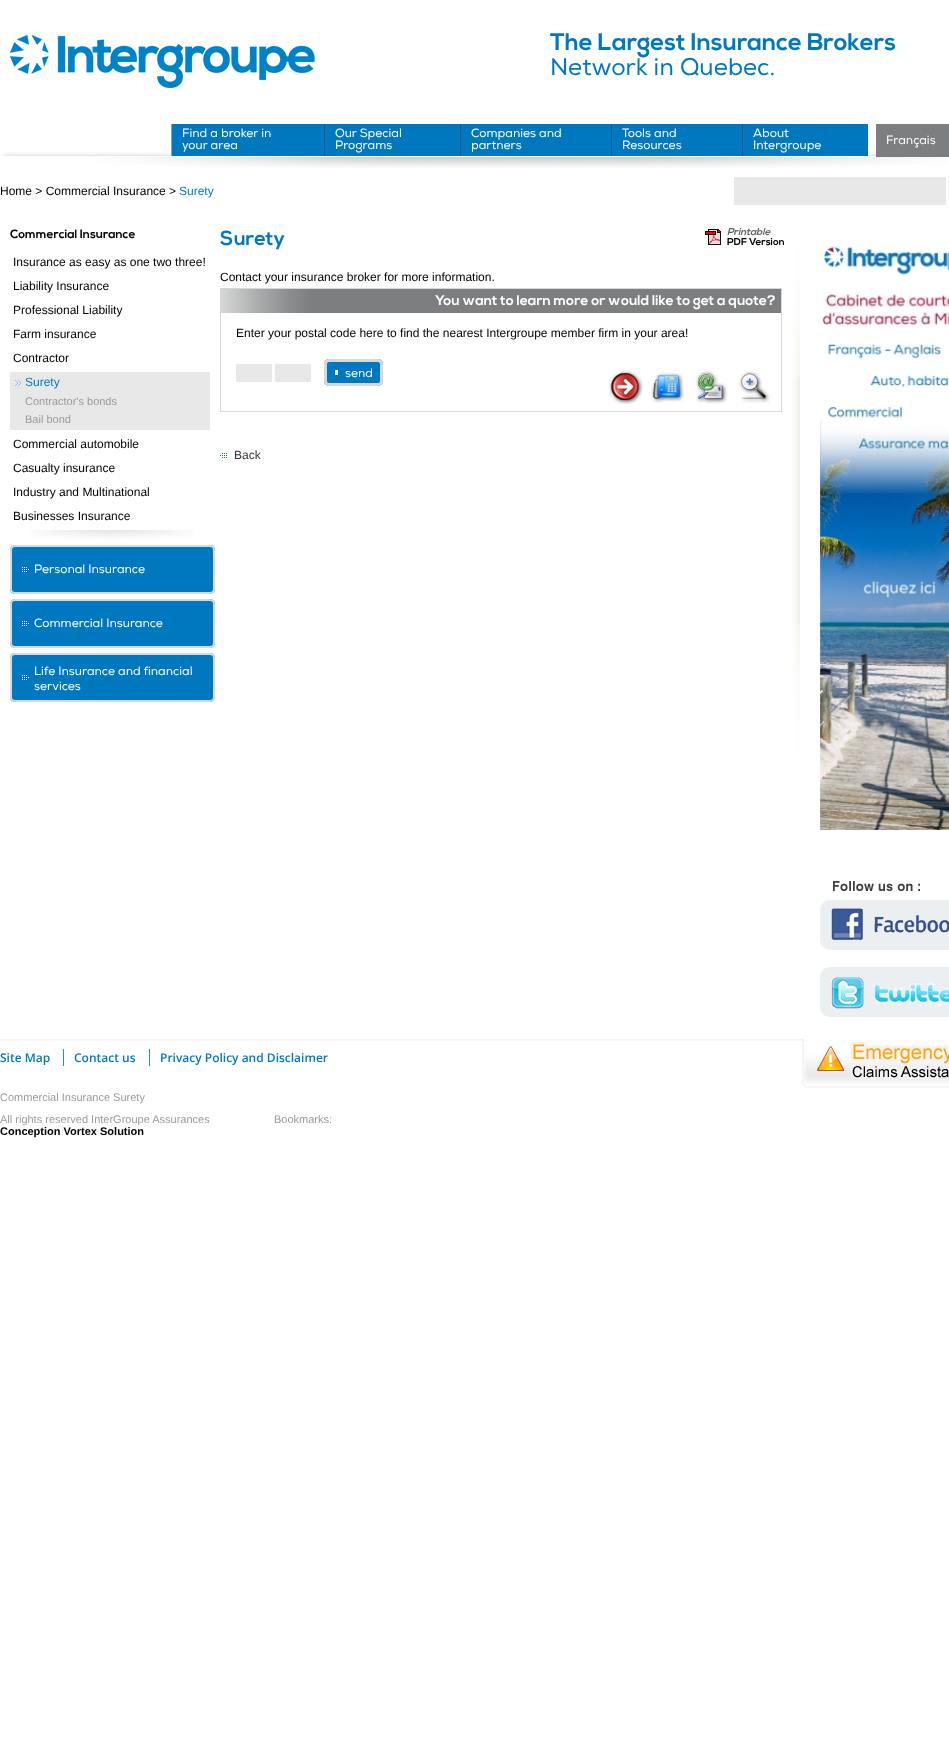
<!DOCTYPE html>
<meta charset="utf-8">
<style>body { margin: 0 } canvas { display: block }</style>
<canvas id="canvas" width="949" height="1751"></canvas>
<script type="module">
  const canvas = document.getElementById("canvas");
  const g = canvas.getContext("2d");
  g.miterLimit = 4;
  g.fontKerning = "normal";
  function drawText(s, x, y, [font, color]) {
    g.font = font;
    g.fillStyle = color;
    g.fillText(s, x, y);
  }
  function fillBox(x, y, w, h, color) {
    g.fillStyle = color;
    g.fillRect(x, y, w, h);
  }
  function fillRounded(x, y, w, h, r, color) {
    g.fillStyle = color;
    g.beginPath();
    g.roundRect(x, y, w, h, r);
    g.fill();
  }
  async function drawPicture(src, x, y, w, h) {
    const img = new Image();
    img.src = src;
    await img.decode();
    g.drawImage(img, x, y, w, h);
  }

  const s1 = ["bold 24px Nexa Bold", "#0078BF"];
  const s2 = ["24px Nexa", "#0078BF"];
  const s3 = ["12px Nexa", "#FFFFFF"];
  const s4 = ["12px Liberation Sans", "#000000"];
  const s5 = ["12px Liberation Sans", "#0078BF"];
  const s6 = ["bold 12px Nexa Bold", "#000000"];
  const s7 = ["11px Liberation Sans", "#9B9B9B"];
  const s8 = ["bold 20px Nexa Bold", "#0078BF"];
  const s9 = ["italic bold 10px Nexa Bold", "#666666"];
  const s10 = ["bold 10px Nexa Bold", "#000000"];
  const s11 = ["bold 14px Nexa Bold", "#FFFFFF"];
  const s12 = ["12px Liberation Sans", "#333333"];
  const s13 = ["600 12px Open Sans", "#0078BF"];
  const s14 = ["bold 11px Liberation Sans", "#000000"];

  fillBox(0, 0, 949, 1751, "#FFFFFF");
  await drawPicture("pic1.png", 2, 152, 947, 16);
  await drawPicture("pic2.png", 10, 35, 305, 53);
  drawText("The Largest Insurance Brokers", 550, 50, s1);
  drawText("Network in Quebec.", 550, 75, s2);
  fillBox(172, 124, 152, 32, "#0078BF");
  fillBox(171, 124, 1, 32, "#96A786");
  drawText("Find a broker in", 182, 137, s3);
  drawText("your area", 182, 149, s3);
  fillBox(325, 124, 135, 32, "#0078BF");
  fillBox(324, 124, 1, 32, "#005D94");
  drawText("Our Special", 335, 137, s3);
  drawText("Programs", 335, 149, s3);
  fillBox(461, 124, 150, 32, "#0078BF");
  fillBox(460, 124, 1, 32, "#005D94");
  drawText("Companies and", 471, 137, s3);
  drawText("partners", 471, 149, s3);
  fillBox(612, 124, 130, 32, "#0078BF");
  fillBox(611, 124, 1, 32, "#005D94");
  drawText("Tools and", 622, 137, s3);
  drawText("Resources", 622, 149, s3);
  fillBox(743, 124, 125, 32, "#0078BF");
  fillBox(742, 124, 1, 32, "#005D94");
  drawText("About", 753, 137, s3);
  drawText("Intergroupe", 753, 149, s3);
  fillBox(876, 124, 73, 33, "#7C7E7F");
  drawText("Français", 886, 144, s3);
  drawText("Home > Commercial Insurance >", 0, 195, s4);
  drawText("Surety", 179, 195, s5);
  fillBox(734, 177, 212, 28, "#E8E8E8");
  await drawPicture("pic3.png", 792, 377, 8, 247);
  drawText("Commercial Insurance", 10, 238, s6);
  await drawPicture("pic4.png", 31, 530, 163, 9);
  drawText("Insurance as easy as one two three!", 13, 266, s4);
  drawText("Liability Insurance", 13, 290, s4);
  drawText("Professional Liability", 13, 314, s4);
  drawText("Farm insurance", 13, 338, s4);
  drawText("Contractor", 13, 362, s4);
  fillBox(10, 372, 200, 58, "#E8E8E8");
  await drawPicture("pic5.png", 15, 380, 6, 6);
  drawText("Surety", 25, 386, s5);
  drawText("Contractor's bonds", 25, 405, s7);
  drawText("Bail bond", 25, 423, s7);
  drawText("Commercial automobile", 13, 448, s4);
  drawText("Casualty insurance", 13, 472, s4);
  drawText("Industry and Multinational", 13, 496, s4);
  drawText("Businesses Insurance", 13, 520, s4);
  fillRounded(10, 545, 205, 49, 5, "#0078BF");
  await drawPicture("pic6.png", 22, 567, 7, 5);
  g.beginPath();
  g.roundRect(11, 546, 203, 47, 4);
  g.strokeStyle = "#D7D8D8";
  g.lineWidth = 2;
  g.stroke();
  drawText("Personal Insurance", 34, 573, s3);
  fillRounded(10, 599, 205, 49, 5, "#0078BF");
  await drawPicture("pic6.png", 22, 621, 7, 5);
  g.beginPath();
  g.roundRect(11, 600, 203, 47, 4);
  g.stroke();
  drawText("Commercial Insurance", 34, 627, s3);
  fillRounded(10, 653, 205, 49, 5, "#0078BF");
  await drawPicture("pic6.png", 22, 675, 7, 5);
  g.beginPath();
  g.roundRect(11, 654, 203, 47, 4);
  g.stroke();
  drawText("Life Insurance and financial", 34, 675, s3);
  drawText("services", 34, 690, s3);
  drawText("Surety", 220, 245, s8);
  await drawPicture("pic7.png", 705, 229, 16, 16);
  drawText("Printable", 727, 235, s9);
  drawText("PDF Version", 727, 245, s10);
  drawText("Contact your insurance broker for more information.", 220, 281, s4);
  g.lineWidth = 1;
  g.strokeRect(220.5, 288.5, 561, 123);
  await drawPicture("pic8.png", 221, 289, 560, 24);
  drawText("You want to learn more or would like to get a quote?", 435, 305, s11);
  drawText("Enter your postal code here to find the nearest Intergroupe member firm in your area!", 236, 337, s4);
  fillBox(236, 364, 36, 18, "#E8E8E8");
  fillBox(275, 364, 36, 18, "#E8E8E8");
  fillRounded(324, 359, 59, 27, 5, "#0078BF");
  fillBox(335, 370, 3, 5, "#FFFFFF");
  g.beginPath();
  g.roundRect(325.5, 360.5, 56, 24, 3.5);
  g.lineWidth = 3;
  g.stroke();
  drawText("send", 345, 377, s3);
  await drawPicture("pic9.png", 609, 370, 34, 34);
  await drawPicture("pic10.png", 651, 373, 33, 30);
  await drawPicture("pic11.png", 695, 370, 32, 34);
  await drawPicture("pic12.png", 739, 371, 31, 32);
  await drawPicture("pic13.png", 220, 453, 7, 5);
  drawText("Back", 234, 459, s12);
  await drawPicture("pic14.png", 792, 227, 8, 150);
  await drawPicture("pic15.png", 792, 624, 8, 150);
  await drawPicture("pic16.png", 820, 246, 129, 584);
  await drawPicture("pic17.png", 833, 881, 87, 10);
  await drawPicture("pic18.png", 820, 900, 129, 50);
  await drawPicture("pic19.png", 820, 967, 129, 50);
  await drawPicture("pic20.png", 0, 1039, 802, 2);
  drawText("Site Map", 0, 1062, s13);
  drawText("Contact us", 74, 1062, s13);
  fillBox(63, 1049, 1, 17, "#3785C3");
  drawText("Privacy Policy and Disclaimer", 160, 1062, s13);
  fillBox(149, 1049, 1, 17, "#3785C3");
  await drawPicture("pic21.png", 802, 1039, 147, 49);
  drawText("Commercial Insurance Surety", 0, 1101, s7);
  drawText("All rights reserved InterGroupe Assurances", 0, 1123, s7);
  drawText("Conception Vortex Solution", 0, 1135, s14);
  drawText("Bookmarks:", 274, 1123, s7);
</script>
